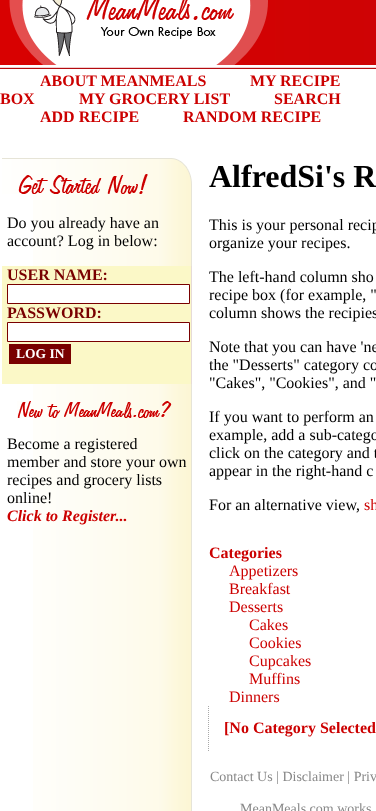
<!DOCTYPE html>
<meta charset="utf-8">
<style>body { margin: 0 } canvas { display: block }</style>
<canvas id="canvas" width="376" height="811"></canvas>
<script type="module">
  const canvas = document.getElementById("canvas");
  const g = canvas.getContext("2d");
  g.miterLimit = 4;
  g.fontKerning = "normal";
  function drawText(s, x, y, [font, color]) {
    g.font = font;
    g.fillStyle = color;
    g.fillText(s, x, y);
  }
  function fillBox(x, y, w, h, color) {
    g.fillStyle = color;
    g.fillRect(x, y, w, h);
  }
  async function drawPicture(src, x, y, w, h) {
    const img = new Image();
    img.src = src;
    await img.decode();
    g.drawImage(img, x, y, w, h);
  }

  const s1 = ["bold 16px Liberation Serif", "#CC0000"];
  const s2 = ["16px Liberation Serif", "#000000"];
  const s3 = ["bold 16px Liberation Serif", "#790000"];
  const s4 = ["bold 13.5px Liberation Serif", "#FFFFFF"];
  const s5 = ["italic bold 16px Liberation Serif", "#CC0000"];
  const s6 = ["bold 32px Liberation Serif", "#000000"];
  const s7 = ["16px Liberation Serif", "#CC0000"];
  const s8 = ["14px Liberation Serif", "#888888"];

  fillBox(0, 0, 376, 811, "#FFFFFF");
  await drawPicture("pic1.png", 0, 0, 376, 69);
  drawText("ABOUT MEANMEALS", 40, 86, s1);
  drawText("MY RECIPE", 250, 86, s1);
  drawText("BOX", 0, 104, s1);
  drawText("MY GROCERY LIST", 79, 104, s1);
  drawText("SEARCH", 274, 104, s1);
  drawText("ADD RECIPE", 40, 122, s1);
  drawText("RANDOM RECIPE", 183, 122, s1);
  await drawPicture("pic2.png", 33, 194, 159, 617);
  await drawPicture("pic3.png", 2, 158, 190, 36);
  drawText("Do you already have an", 7, 228, s2);
  drawText("account? Log in below:", 7, 246, s2);
  fillBox(2, 266, 189, 118, "#FBF8C7");
  fillBox(191, 266, 1, 118, "#E6DBD7");
  drawText("USER NAME:", 7, 280, s3);
  g.fillStyle = "#FFFFFF";
  g.beginPath();
  g.rect(7.5, 284.5, 182, 19);
  g.fill();
  g.strokeStyle = "#790000";
  g.stroke();
  drawText("PASSWORD:", 7, 318, s3);
  g.fillStyle = "#FFFFFF";
  g.beginPath();
  g.rect(7.5, 322.5, 182, 19);
  g.fill();
  g.stroke();
  fillBox(9, 344, 62, 20, "#790000");
  drawText("LOG IN", 16, 358, s4);
  await drawPicture("pic4.png", 17, 401, 155, 17);
  drawText("Become a registered", 7, 449, s2);
  drawText("member and store your own", 7, 467, s2);
  drawText("recipes and grocery lists", 7, 485, s2);
  drawText("online!", 7, 503, s2);
  drawText("Click to Register...", 7, 521, s5);
  drawText("AlfredSi's R", 209, 187, s6);
  drawText("This is your personal recip", 209, 230, s2);
  drawText("organize your recipes.", 209, 248, s2);
  drawText("The left-hand column sho", 209, 282, s2);
  drawText("recipe box (for example, \"", 209, 300, s2);
  drawText("column shows the recipies", 209, 318, s2);
  drawText("Note that you can have 'ne", 209, 352, s2);
  drawText("the \"Desserts\" category co", 209, 370, s2);
  drawText("\"Cakes\", \"Cookies\", and \"", 209, 388, s2);
  drawText("If you want to perform an", 209, 422, s2);
  drawText("example, add a sub-catego", 209, 440, s2);
  drawText("click on the category and t", 209, 458, s2);
  drawText("appear in the right-hand c", 209, 476, s2);
  drawText("For an alternative view,", 209, 510, s2);
  drawText("sh", 364, 510, s7);
  drawText("Categories", 209, 558, s1);
  drawText("Appetizers", 229, 576, s7);
  drawText("Breakfast", 229, 594, s7);
  drawText("Desserts", 229, 612, s7);
  drawText("Cakes", 249, 630, s7);
  drawText("Cookies", 249, 648, s7);
  drawText("Cupcakes", 249, 666, s7);
  drawText("Muffins", 249, 684, s7);
  drawText("Dinners", 229, 702, s7);
  g.beginPath();
  g.moveTo(208.5, 706);
  g.lineTo(208.5, 751);
  g.strokeStyle = "#A9A9A9";
  g.setLineDash([1, 1]);
  g.stroke();
  drawText("[No Category Selected", 224, 733, s1);
  drawText("Contact Us | Disclaimer | Priv", 210, 781, s8);
  drawText("MeanMeals.com works", 240, 813, s8);
</script>
